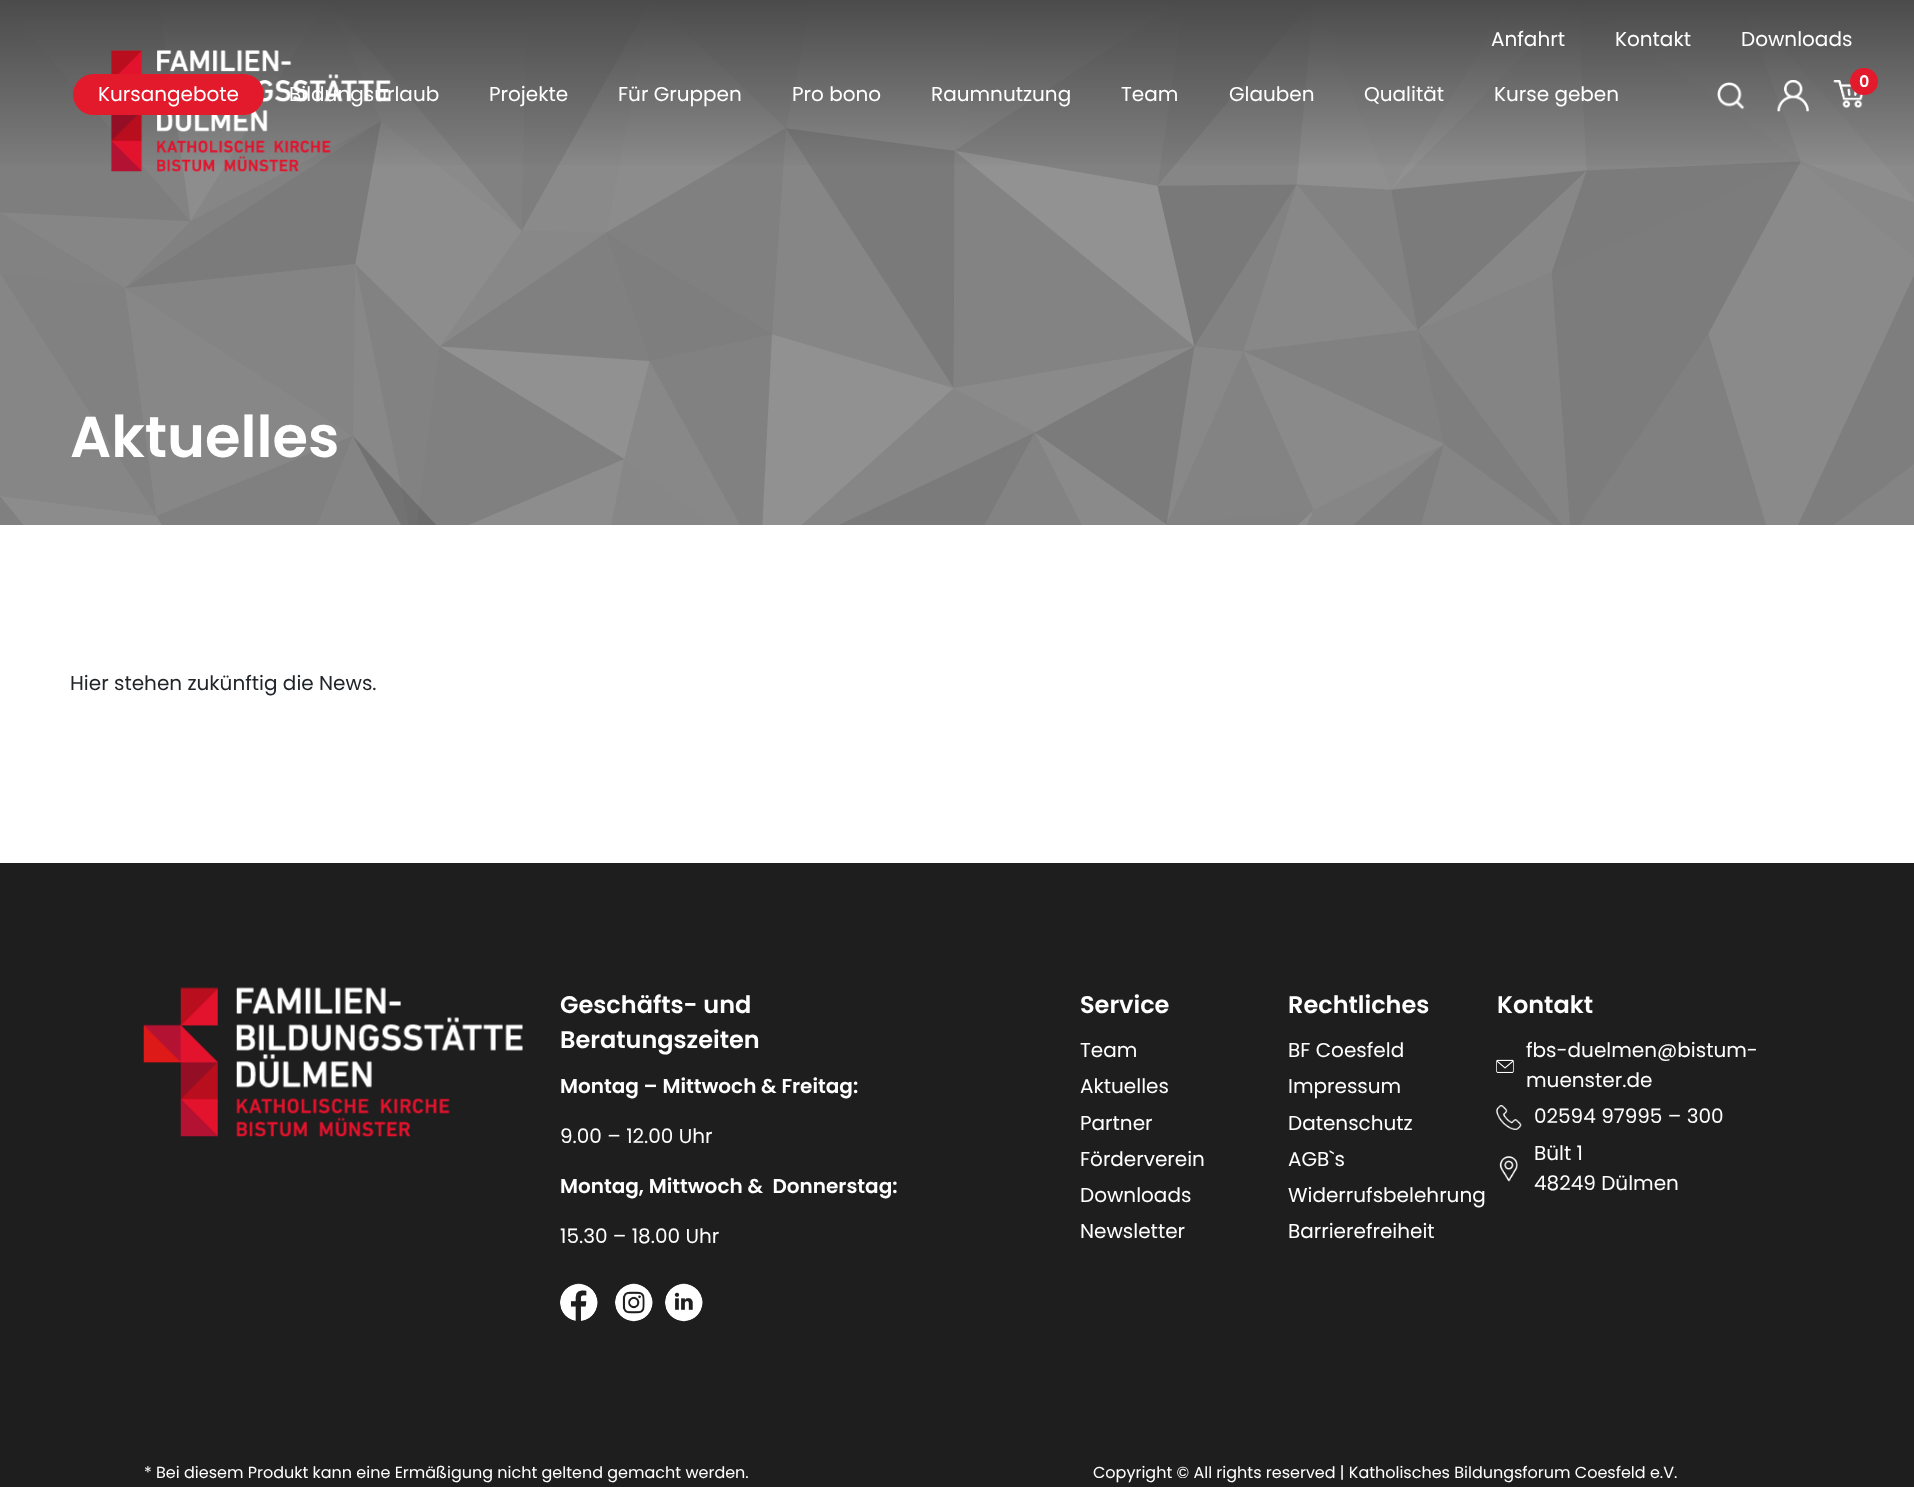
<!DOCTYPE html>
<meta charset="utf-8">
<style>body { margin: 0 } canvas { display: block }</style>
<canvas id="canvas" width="1914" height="1487"></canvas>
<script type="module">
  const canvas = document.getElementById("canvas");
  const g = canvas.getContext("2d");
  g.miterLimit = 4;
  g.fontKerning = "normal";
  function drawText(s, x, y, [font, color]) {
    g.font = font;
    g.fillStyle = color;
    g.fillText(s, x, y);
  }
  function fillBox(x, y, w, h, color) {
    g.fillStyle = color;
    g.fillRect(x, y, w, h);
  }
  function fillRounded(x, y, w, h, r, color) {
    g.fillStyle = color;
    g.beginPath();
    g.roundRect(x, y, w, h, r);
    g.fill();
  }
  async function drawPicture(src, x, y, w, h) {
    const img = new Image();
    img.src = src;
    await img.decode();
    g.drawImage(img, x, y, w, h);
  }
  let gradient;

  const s1 = ["20px Poppins", "#FFFFFF"];
  const s2 = ["600 16px Poppins", "#FFFFFF"];
  const s3 = ["600 57.5px Poppins", "#FFFFFF"];
  const s4 = ["20px Poppins", "#212529"];
  const s5 = ["600 24px Poppins", "#FFFFFF"];
  const s6 = ["600 20px Poppins", "#FFFFFF"];
  const s7 = ["16px Poppins", "#FFFFFF"];

  fillBox(0, 0, 1914, 1487, "#FFFFFF");
  fillBox(0, 1, 1914, 524, "#929292");
  await drawPicture("pic5.png", 0, 1, 1914, 524);
  gradient = g.createLinearGradient(958, 171, 958, 0);
  gradient.addColorStop(0, "rgba(75, 75, 75, 0)");
  gradient.addColorStop(1, "#4B4B4B");
  g.fillStyle = gradient;
  g.fillRect(0, 0, 1914, 165);
  drawText("Anfahrt", 1491, 46, s1);
  drawText("Kontakt", 1615, 46, s1);
  drawText("Downloads", 1741, 46, s1);
  await drawPicture("pic1.png", 1717, 82, 28, 28);
  await drawPicture("pic2.png", 1777, 80, 32, 32);
  await drawPicture("pic3.png", 1833, 80, 31, 28);
  fillRounded(1850, 68, 28, 27, 13.5, "#E31A2C");
  drawText("0", 1859, 87, s2);
  await drawPicture("pic4.png", 81, 50, 310, 122);
  fillRounded(73, 74, 191, 41, 20.5, "#E31A2C");
  drawText("Kursangebote", 98, 101, s1);
  drawText("Bildungsurlaub", 289, 101, s1);
  drawText("Projekte", 489, 101, s1);
  drawText("Für Gruppen", 618, 101, s1);
  drawText("Pro bono", 792, 101, s1);
  drawText("Raumnutzung", 931, 101, s1);
  drawText("Team", 1121, 101, s1);
  drawText("Glauben", 1229, 101, s1);
  drawText("Qualität", 1364, 101, s1);
  drawText("Kurse geben", 1494, 101, s1);
  drawText("Aktuelles", 70, 457, s3);
  drawText("Hier stehen zukünftig die News.", 70, 690, s4);
  fillBox(0, 863, 1914, 624, "#1E1E1E");
  await drawPicture("pic6.png", 143, 987, 380, 150);
  drawText("Geschäfts- und", 560, 1013, s5);
  drawText("Beratungszeiten", 560, 1048, s5);
  drawText("Montag – Mittwoch & Freitag:", 560, 1093, s6);
  drawText("9.00 – 12.00 Uhr", 560, 1143, s1);
  drawText("Montag, Mittwoch &  Donnerstag:", 560, 1193, s6);
  drawText("15.30 – 18.00 Uhr", 560, 1243, s1);
  await drawPicture("pic7.png", 559, 1283, 39, 38);
  await drawPicture("pic8.png", 614, 1283, 39, 39);
  await drawPicture("pic9.png", 664, 1283, 39, 39);
  drawText("Service", 1080, 1013, s5);
  drawText("Team", 1080, 1057, s1);
  drawText("Aktuelles", 1080, 1093, s1);
  drawText("Partner", 1080, 1130, s1);
  drawText("Förderverein", 1080, 1166, s1);
  drawText("Downloads", 1080, 1202, s1);
  drawText("Newsletter", 1080, 1238, s1);
  drawText("Rechtliches", 1288, 1013, s5);
  drawText("BF Coesfeld", 1288, 1057, s1);
  drawText("Impressum", 1288, 1093, s1);
  drawText("Datenschutz", 1288, 1130, s1);
  drawText("AGB`s", 1288, 1166, s1);
  drawText("Widerrufsbelehrung", 1288, 1202, s1);
  drawText("Barrierefreiheit", 1288, 1238, s1);
  drawText("Kontakt", 1497, 1013, s5);
  await drawPicture("pic10.png", 1496, 1059, 18, 14);
  drawText("fbs-duelmen@bistum-", 1526, 1057, s1);
  drawText("muenster.de", 1526, 1087, s1);
  await drawPicture("pic11.png", 1496, 1105, 26, 25);
  drawText("02594 97995 – 300", 1534, 1123, s1);
  await drawPicture("pic12.png", 1499, 1156, 19, 26);
  drawText("Bült 1", 1534, 1160, s1);
  drawText("48249 Dülmen", 1534, 1190, s1);
  drawText("* Bei diesem Produkt kann eine Ermäßigung nicht geltend gemacht werden.", 144, 1478, s7);
  drawText("Copyright © All rights reserved | Katholisches Bildungsforum Coesfeld e.V.", 1093, 1478, s7);
</script>
